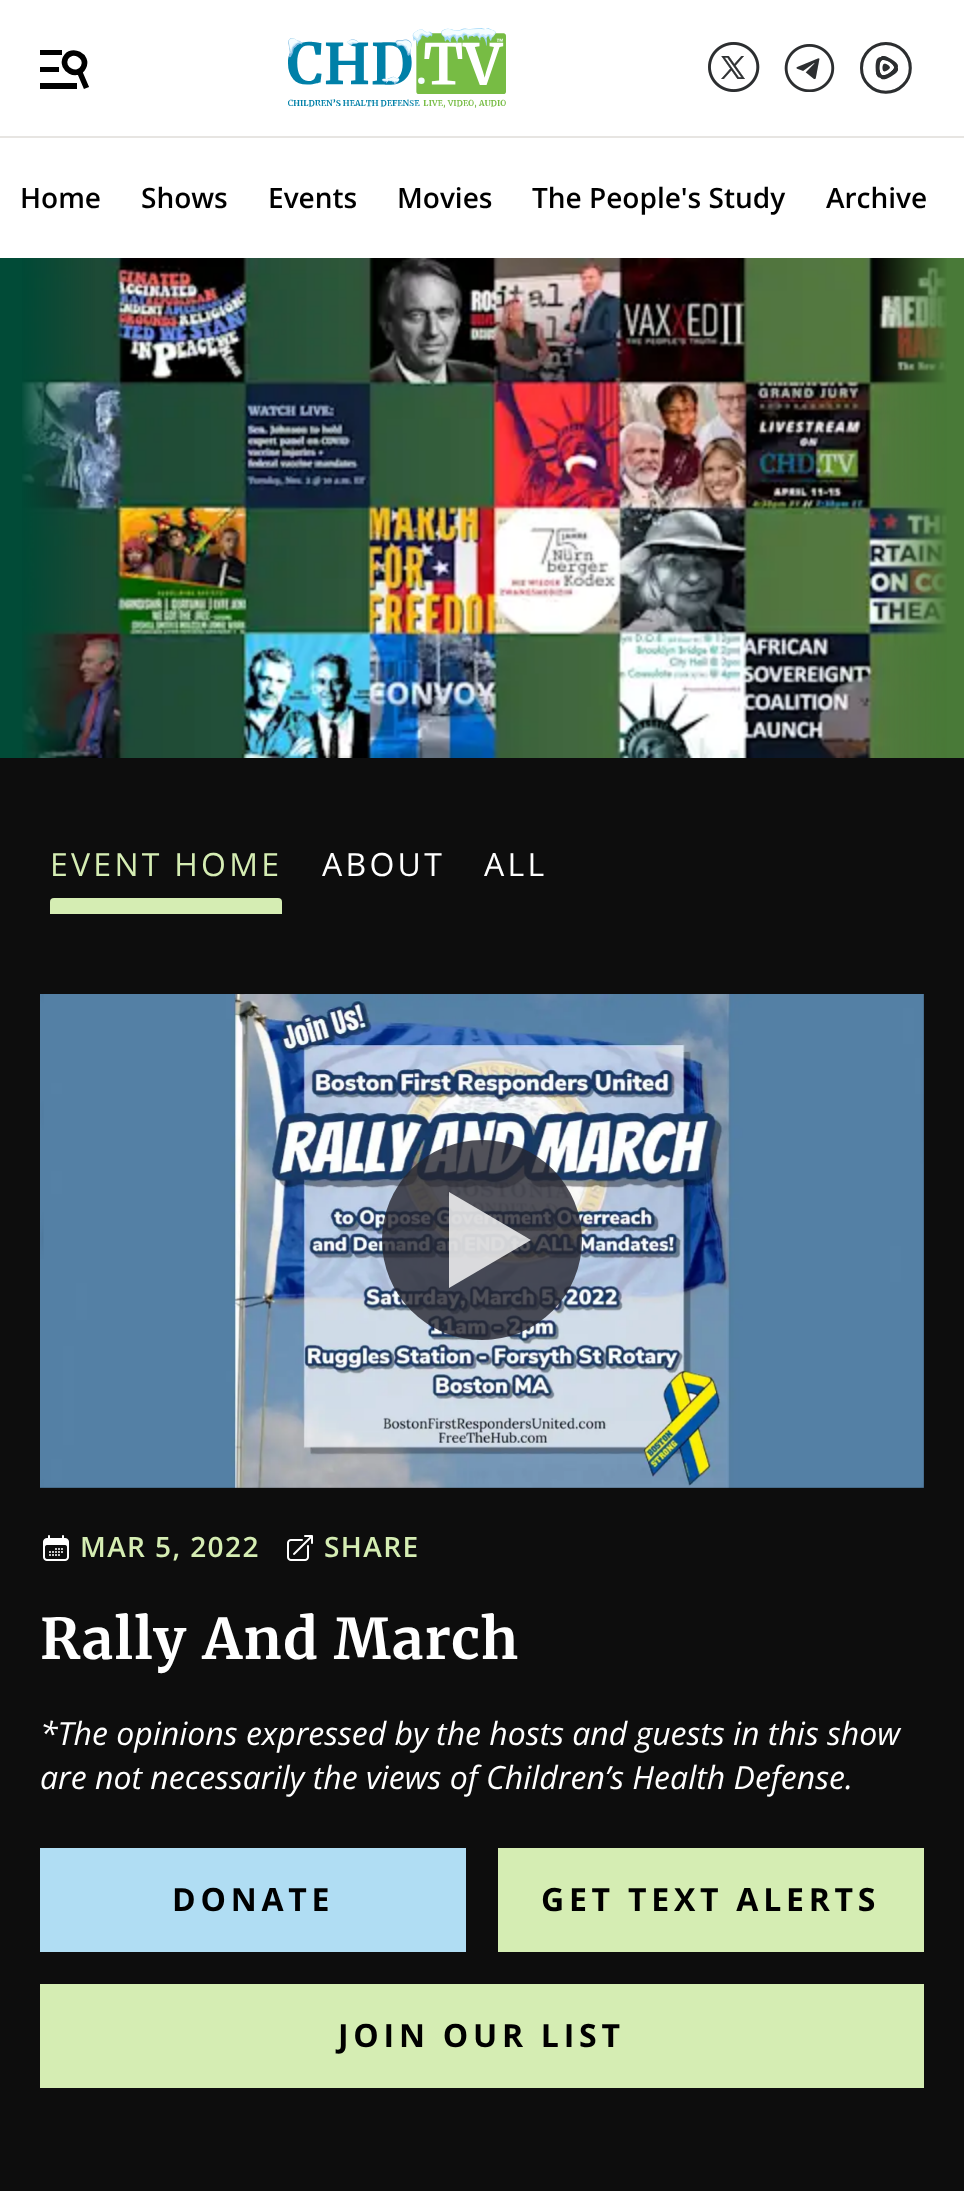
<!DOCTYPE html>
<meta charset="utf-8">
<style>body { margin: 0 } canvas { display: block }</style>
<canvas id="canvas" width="964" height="2191"></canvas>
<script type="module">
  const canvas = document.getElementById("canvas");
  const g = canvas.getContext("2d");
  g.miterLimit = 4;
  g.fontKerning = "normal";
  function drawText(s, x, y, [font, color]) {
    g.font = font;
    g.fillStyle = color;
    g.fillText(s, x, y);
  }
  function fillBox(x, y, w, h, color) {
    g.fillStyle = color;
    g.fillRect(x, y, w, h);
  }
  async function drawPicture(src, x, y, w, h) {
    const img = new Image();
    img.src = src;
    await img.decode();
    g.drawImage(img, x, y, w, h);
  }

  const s1 = ["600 28px Open Sans", "#000000"];
  const s2 = ["32px Open Sans", "#D5EDB3"];
  const s3 = ["32px Open Sans", "#FFFFFF"];
  const s4 = ["600 28px Open Sans", "#D5EDB3"];
  const s5 = ["bold 56px Merriweather", "#FFFFFF"];
  const s6 = ["italic 32px Open Sans", "#FFFFFF"];
  const s7 = ["bold 32px Open Sans", "#000000"];

  fillBox(0, 0, 964, 2191, "#FFFFFF");
  fillBox(0, 136, 964, 2, "#E7E5E2");
  fillBox(40, 50, 22, 5, "#000000");
  fillBox(40, 67, 19, 5, "#000000");
  fillBox(40, 83, 37, 6, "#000000");
  g.beginPath();
  g.moveTo(83.5, 67);
  g.bezierCurveTo(78, 78.5, 60, 69.5, 65.5, 58);
  g.bezierCurveTo(71.5, 47, 89, 56, 83.5, 67);
  g.closePath();
  g.moveTo(79, 70.5);
  g.lineTo(86.5, 88);
  g.strokeStyle = "#000000";
  g.lineWidth = 5.6;
  g.stroke();
  await drawPicture("pic1.png", 288, 28, 218, 80);
  await drawPicture("pic2.png", 708, 42, 52, 50);
  await drawPicture("pic3.png", 784, 44, 51, 48);
  await drawPicture("pic4.png", 860, 42, 52, 52);
  drawText("Home", 20, 208, s1);
  drawText("Shows", 141, 208, s1);
  drawText("Events", 268, 208, s1);
  drawText("Movies", 397, 208, s1);
  drawText("The People's Study", 532, 208, s1);
  drawText("Archive", 826, 208, s1);
  fillBox(0, 758, 964, 1433, "#0D0D0D");
  fillBox(0, 258, 95, 500, "#014B37");
  fillBox(873, 258, 91, 500, "#497A38");
  await drawPicture("pic5.png", 22, 258, 925, 500);
  g.letterSpacing = "3.25px";
  drawText("EVENT HOME", 50, 876, s2);
  g.beginPath();
  g.roundRect(50, 898, 232, 16, [4, 4, 0, 0]);
  g.fill();
  drawText("ABOUT", 322, 876, s3);
  drawText("ALL", 484, 876, s3);
  await drawPicture("pic6.png", 40, 994, 884, 494);
  g.fillStyle = "rgba(37, 37, 47, 0.8)";
  g.beginPath();
  g.arc(482, 1240, 100, 0, Math.PI * 2);
  g.fill();
  g.fillStyle = "rgba(255, 255, 255, 0.8)";
  g.beginPath();
  g.moveTo(449, 1192);
  g.lineTo(531, 1240);
  g.lineTo(449, 1288);
  g.closePath();
  g.fill();
  await drawPicture("pic7.png", 43, 1535, 26, 26);
  g.letterSpacing = "1.4px";
  drawText("MAR 5, 2022", 80, 1557, s4);
  await drawPicture("pic8.png", 287, 1535, 26, 26);
  drawText("SHARE", 324, 1557, s4);
  drawText("Rally And March", 40, 1659, s5);
  g.letterSpacing = "0px";
  drawText("*The opinions expressed by the hosts and guests in this show", 40, 1745, s6);
  drawText("are not necessarily the views of Children’s Health Defense.", 40, 1789, s6);
  fillBox(40, 1848, 426, 104, "#B0DDF3");
  g.letterSpacing = "4.75px";
  drawText("DONATE", 172, 1911, s7);
  fillBox(498, 1848, 426, 104, "#D5EDB3");
  drawText("GET TEXT ALERTS", 541, 1911, s7);
  fillBox(40, 1984, 884, 104, "#D5EDB3");
  drawText("JOIN OUR LIST", 338, 2047, s7);
</script>
